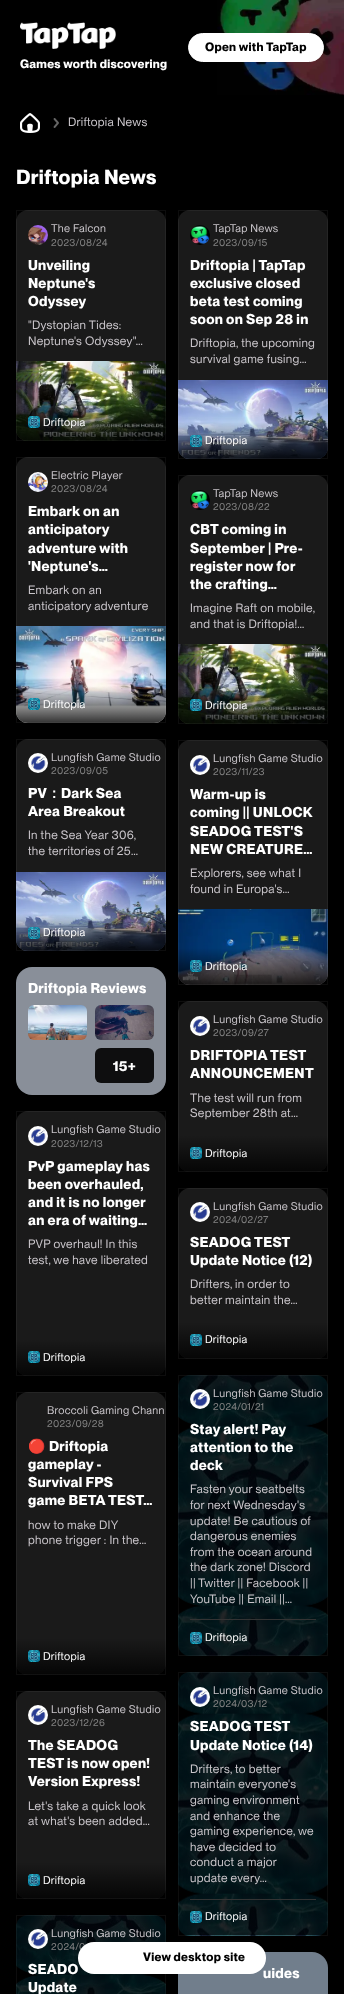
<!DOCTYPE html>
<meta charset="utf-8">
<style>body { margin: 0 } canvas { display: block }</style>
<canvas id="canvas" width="344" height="1994"></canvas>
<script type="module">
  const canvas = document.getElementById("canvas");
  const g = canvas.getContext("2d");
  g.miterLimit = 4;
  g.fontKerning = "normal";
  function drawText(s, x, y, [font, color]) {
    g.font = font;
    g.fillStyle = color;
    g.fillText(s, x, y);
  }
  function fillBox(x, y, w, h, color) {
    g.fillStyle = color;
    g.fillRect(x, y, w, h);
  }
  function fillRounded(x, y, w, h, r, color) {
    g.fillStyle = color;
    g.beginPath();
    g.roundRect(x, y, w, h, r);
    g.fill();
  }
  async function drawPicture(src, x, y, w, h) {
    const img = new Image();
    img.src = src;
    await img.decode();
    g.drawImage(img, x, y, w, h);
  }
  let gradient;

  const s1 = ["bold 12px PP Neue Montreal", "#000000"];
  const s2 = ["bold 12px PP Neue Montreal", "#FFFFFF"];
  const s3 = ["12px PP Neue Montreal", "#C9C5CA"];
  const s4 = ["bold 20px PP Neue Montreal", "#FFFFFF"];
  const s5 = ["11px PP Neue Montreal", "#C9C5CA"];
  const s6 = ["10px PP Neue Montreal", "#808080"];
  const s7 = ["bold 14px PP Neue Montreal", "#FFFFFF"];
  const s8 = ["11px PP Neue Montreal", "#FFFFFF"];
  const s9 = ["bold 14px WenQuanYi Zen Hei", "#FFFFFF"];
  const s10 = ["bold 14px Noto Color Emoji", "#FFFFFF"];

  fillBox(0, 0, 344, 1994, "#000000");
  await drawPicture("pic1.png", 217, 0, 127, 95);
  g.fillStyle = "#FFFFFF";
  g.beginPath();
  g.roundRect(188.5, 33.5, 135, 28, 14);
  g.fill();
  g.strokeStyle = "#FFFFFF";
  g.stroke();
  g.letterSpacing = "0.3px";
  drawText("Open with TapTap", 205, 51, s1);
  await drawPicture("pic2.png", 20, 22, 96, 27);
  drawText("Games worth discovering", 20, 68, s2);
  await drawPicture("pic3.png", 20, 113, 20, 20);
  await drawPicture("pic4.png", 53, 118, 6, 10);
  drawText("Driftopia News", 68, 126, s3);
  drawText("Driftopia News", 16, 184, s4);
  fillRounded(16, 210, 150, 231, 12, "#1A1A1A");
  await drawPicture("pic5.png", 28, 225, 20, 20);
  await drawPicture("pic6.png", 16, 361, 150, 80);
  gradient = g.createLinearGradient(91, 404, 91, 441);
  gradient.addColorStop(0, "rgba(0, 0, 0, 0)");
  gradient.addColorStop(1, "rgba(0, 0, 0, 0.8)");
  g.fillStyle = gradient;
  g.beginPath();
  g.roundRect(16, 404, 150, 37, [0, 0, 12, 12]);
  g.fill();
  await drawPicture("pic7.png", 28, 416, 12, 12);
  g.strokeStyle = "rgba(255, 255, 255, 0.05)";
  g.strokeRect(16.5, 210.5, 149, 230);
  drawText("The Falcon", 51, 232, s5);
  drawText("2023/08/24", 51, 246, s6);
  drawText("Unveiling", 28, 270, s7);
  drawText("Neptune's", 28, 288, s7);
  drawText("Odyssey", 28, 306, s7);
  drawText("\"Dystopian Tides:", 28, 329, s3);
  drawText("Neptune's Odyssey\"…", 28, 345, s3);
  drawText("Driftopia", 43, 426, s8);
  fillRounded(178, 210, 150, 249, 12, "#1A1A1A");
  await drawPicture("pic8.png", 190, 225, 20, 20);
  await drawPicture("pic9.png", 178, 380, 150, 79);
  gradient = g.createLinearGradient(253, 422, 253, 459);
  gradient.addColorStop(0, "rgba(0, 0, 0, 0)");
  gradient.addColorStop(1, "rgba(0, 0, 0, 0.8)");
  g.fillStyle = gradient;
  g.beginPath();
  g.roundRect(178, 422, 150, 37, [0, 0, 12, 12]);
  g.fill();
  await drawPicture("pic10.png", 190, 435, 12, 12);
  g.strokeRect(178.5, 210.5, 149, 248);
  drawText("TapTap News", 213, 232, s5);
  drawText("2023/09/15", 213, 246, s6);
  drawText("Driftopia | TapTap", 190, 270, s7);
  drawText("exclusive closed", 190, 288, s7);
  drawText("beta test coming", 190, 306, s7);
  drawText("soon on Sep 28 in", 190, 324, s7);
  drawText("Driftopia, the upcoming", 190, 347, s3);
  drawText("survival game fusing…", 190, 363, s3);
  drawText("Driftopia", 205, 444, s8);
  fillRounded(16, 457, 150, 266, 12, "#1A1A1A");
  await drawPicture("pic11.png", 28, 472, 20, 20);
  await drawPicture("pic12.png", 16, 626, 150, 97);
  gradient = g.createLinearGradient(91, 686, 91, 723);
  gradient.addColorStop(0, "rgba(0, 0, 0, 0)");
  gradient.addColorStop(1, "rgba(0, 0, 0, 0.8)");
  g.fillStyle = gradient;
  g.beginPath();
  g.roundRect(16, 686, 150, 37, [0, 0, 12, 12]);
  g.fill();
  await drawPicture("pic13.png", 28, 698, 12, 12);
  g.strokeRect(16.5, 457.5, 149, 265);
  drawText("Electric Player", 51, 479, s5);
  drawText("2023/08/24", 51, 492, s6);
  drawText("Embark on an", 28, 516, s7);
  drawText("anticipatory", 28, 534, s7);
  drawText("adventure with", 28, 553, s7);
  drawText("'Neptune's…", 28, 571, s7);
  drawText("Embark on an", 28, 594, s3);
  drawText("anticipatory adventure", 28, 610, s3);
  drawText("Driftopia", 43, 708, s8);
  fillRounded(178, 475, 150, 249, 12, "#1A1A1A");
  await drawPicture("pic14.png", 190, 490, 20, 20);
  await drawPicture("pic15.png", 178, 644, 150, 80);
  gradient = g.createLinearGradient(253, 687, 253, 724);
  gradient.addColorStop(0, "rgba(0, 0, 0, 0)");
  gradient.addColorStop(1, "rgba(0, 0, 0, 0.8)");
  g.fillStyle = gradient;
  g.beginPath();
  g.roundRect(178, 687, 150, 37, [0, 0, 12, 12]);
  g.fill();
  await drawPicture("pic16.png", 190, 699, 12, 12);
  g.strokeRect(178.5, 475.5, 149, 248);
  drawText("TapTap News", 213, 497, s5);
  drawText("2023/08/22", 213, 510, s6);
  drawText("CBT coming in", 190, 534, s7);
  drawText("September | Pre-", 190, 553, s7);
  drawText("register now for", 190, 571, s7);
  drawText("the crafting…", 190, 589, s7);
  drawText("Imagine Raft on mobile,", 190, 612, s3);
  drawText("and that is Driftopia!…", 190, 628, s3);
  drawText("Driftopia", 205, 709, s8);
  fillRounded(16, 739, 150, 212, 12, "#1A1A1A");
  await drawPicture("pic17.png", 28, 753, 20, 20);
  await drawPicture("pic18.png", 16, 872, 150, 79);
  gradient = g.createLinearGradient(91, 914, 91, 951);
  gradient.addColorStop(0, "rgba(0, 0, 0, 0)");
  gradient.addColorStop(1, "rgba(0, 0, 0, 0.8)");
  g.fillStyle = gradient;
  g.beginPath();
  g.roundRect(16, 914, 150, 37, [0, 0, 12, 12]);
  g.fill();
  await drawPicture("pic19.png", 28, 927, 12, 12);
  g.strokeRect(16.5, 739.5, 149, 211);
  drawText("Lungfish Game Studio", 51, 761, s5);
  drawText("2023/09/05", 51, 774, s6);
  drawText("PV", 28, 798, s7);
  drawText("：", 47, 798, s9);
  drawText("Dark Sea", 61, 798, s7);
  drawText("Area Breakout", 28, 816, s7);
  drawText("In the Sea Year 306,", 28, 839, s3);
  drawText("the territories of 25…", 28, 855, s3);
  drawText("Driftopia", 43, 936, s8);
  fillRounded(178, 740, 150, 245, 12, "#1A1A1A");
  await drawPicture("pic20.png", 190, 755, 20, 20);
  await drawPicture("pic21.png", 178, 909, 150, 76);
  gradient = g.createLinearGradient(253, 948, 253, 985);
  gradient.addColorStop(0, "rgba(0, 0, 0, 0)");
  gradient.addColorStop(1, "rgba(0, 0, 0, 0.8)");
  g.fillStyle = gradient;
  g.beginPath();
  g.roundRect(178, 948, 150, 37, [0, 0, 12, 12]);
  g.fill();
  await drawPicture("pic22.png", 190, 960, 12, 12);
  g.strokeRect(178.5, 740.5, 149, 244);
  drawText("Lungfish Game Studio", 213, 762, s5);
  drawText("2023/11/23", 213, 775, s6);
  drawText("Warm-up is", 190, 799, s7);
  drawText("coming || UNLOCK", 190, 817, s7);
  drawText("SEADOG TEST'S", 190, 836, s7);
  drawText("NEW CREATURE…", 190, 854, s7);
  drawText("Explorers, see what I", 190, 877, s3);
  drawText("found in Europa's…", 190, 893, s3);
  drawText("Driftopia", 205, 970, s8);
  fillRounded(16, 967, 150, 128, 16, "#898F99");
  drawText("Driftopia Reviews", 28, 993, s7);
  await drawPicture("pic23.png", 28, 1005, 59, 35);
  await drawPicture("pic24.png", 95, 1005, 59, 35);
  fillRounded(95, 1048, 59, 35, 6, "#0E0E0F");
  drawText("15+", 113, 1071, s7);
  fillRounded(178, 1001, 150, 171, 12, "#1A1A1A");
  await drawPicture("pic25.png", 190, 1016, 20, 20);
  gradient = g.createLinearGradient(253, 1135, 253, 1172);
  gradient.addColorStop(0, "rgba(0, 0, 0, 0)");
  gradient.addColorStop(1, "rgba(0, 0, 0, 0.8)");
  g.fillStyle = gradient;
  g.beginPath();
  g.roundRect(178, 1135, 150, 37, [0, 0, 12, 12]);
  g.fill();
  await drawPicture("pic26.png", 190, 1147, 12, 12);
  g.strokeRect(178.5, 1001.5, 149, 170);
  drawText("Lungfish Game Studio", 213, 1023, s5);
  drawText("2023/09/27", 213, 1036, s6);
  drawText("DRIFTOPIA TEST", 190, 1060, s7);
  drawText("ANNOUNCEMENT", 190, 1078, s7);
  drawText("The test will run from", 190, 1102, s3);
  drawText("September 28th at…", 190, 1117, s3);
  drawText("Driftopia", 205, 1157, s8);
  fillRounded(16, 1111, 150, 265, 12, "#1A1A1A");
  await drawPicture("pic27.png", 28, 1126, 20, 20);
  gradient = g.createLinearGradient(91, 1339, 91, 1376);
  gradient.addColorStop(0, "rgba(0, 0, 0, 0)");
  gradient.addColorStop(1, "rgba(0, 0, 0, 0.8)");
  g.fillStyle = gradient;
  g.beginPath();
  g.roundRect(16, 1339, 150, 37, [0, 0, 12, 12]);
  g.fill();
  await drawPicture("pic26.png", 28, 1351, 12, 12);
  g.strokeRect(16.5, 1111.5, 149, 264);
  drawText("Lungfish Game Studio", 51, 1133, s5);
  drawText("2023/12/13", 51, 1147, s6);
  drawText("PvP gameplay has", 28, 1171, s7);
  drawText("been overhauled,", 28, 1189, s7);
  drawText("and it is no longer", 28, 1207, s7);
  drawText("an era of waiting…", 28, 1225, s7);
  drawText("PVP overhaul! In this", 28, 1248, s3);
  drawText("test, we have liberated", 28, 1264, s3);
  drawText("Driftopia", 43, 1361, s8);
  fillRounded(178, 1188, 150, 171, 12, "#1A1A1A");
  await drawPicture("pic28.png", 190, 1202, 20, 20);
  gradient = g.createLinearGradient(253, 1322, 253, 1359);
  gradient.addColorStop(0, "rgba(0, 0, 0, 0)");
  gradient.addColorStop(1, "rgba(0, 0, 0, 0.8)");
  g.fillStyle = gradient;
  g.beginPath();
  g.roundRect(178, 1322, 150, 37, [0, 0, 12, 12]);
  g.fill();
  await drawPicture("pic26.png", 190, 1334, 12, 12);
  g.strokeRect(178.5, 1188.5, 149, 170);
  drawText("Lungfish Game Studio", 213, 1210, s5);
  drawText("2024/02/27", 213, 1223, s6);
  drawText("SEADOG TEST", 190, 1247, s7);
  drawText("Update Notice (12)", 190, 1265, s7);
  drawText("Drifters, in order to", 190, 1288, s3);
  drawText("better maintain the…", 190, 1304, s3);
  drawText("Driftopia", 205, 1343, s8);
  fillRounded(16, 1392, 150, 283, 12, "#1A1A1A");
  gradient = g.createLinearGradient(91, 1638, 91, 1675);
  gradient.addColorStop(0, "rgba(0, 0, 0, 0)");
  gradient.addColorStop(1, "rgba(0, 0, 0, 0.8)");
  g.fillStyle = gradient;
  g.beginPath();
  g.roundRect(16, 1638, 150, 37, [0, 0, 12, 12]);
  g.fill();
  await drawPicture("pic26.png", 28, 1650, 12, 12);
  g.strokeRect(16.5, 1392.5, 149, 282);
  drawText("Broccoli Gaming Chann", 47, 1414, s5);
  drawText("2023/09/28", 47, 1427, s6);
  drawText("🔴", 28, 1451, s10);
  drawText("Driftopia", 49, 1451, s7);
  drawText("gameplay -", 28, 1469, s7);
  drawText("Survival FPS", 28, 1487, s7);
  drawText("game BETA TEST…", 28, 1505, s7);
  drawText("how to make DIY", 28, 1529, s3);
  drawText("phone trigger : In the…", 28, 1544, s3);
  drawText("Driftopia", 43, 1660, s8);
  await drawPicture("pic29.png", 178, 1375, 150, 281);
  await drawPicture("pic30.png", 190, 1389, 20, 20);
  fillBox(190, 1619, 126, 1, "#333333");
  await drawPicture("pic31.png", 190, 1632, 12, 12);
  g.strokeRect(178.5, 1375.5, 149, 280);
  drawText("Lungfish Game Studio", 213, 1397, s5);
  drawText("2024/01/21", 213, 1410, s6);
  drawText("Stay alert! Pay", 190, 1434, s7);
  drawText("attention to the", 190, 1452, s7);
  drawText("deck", 190, 1470, s7);
  drawText("Fasten your seatbelts", 190, 1493, s3);
  drawText("for next Wednesday's", 190, 1509, s3);
  drawText("update! Be cautious of", 190, 1525, s3);
  drawText("dangerous enemies", 190, 1540, s3);
  drawText("from the ocean around", 190, 1556, s3);
  drawText("the dark zone! Discord", 190, 1571, s3);
  drawText("||", 190, 1587, s3);
  drawText("Twitter || Facebook ||", 198, 1587, s3);
  drawText("YouTube || Email ||…", 190, 1603, s3);
  drawText("Driftopia", 205, 1641, s8);
  fillRounded(16, 1691, 150, 208, 12, "#1A1A1A");
  await drawPicture("pic27.png", 28, 1705, 20, 20);
  gradient = g.createLinearGradient(91, 1862, 91, 1899);
  gradient.addColorStop(0, "rgba(0, 0, 0, 0)");
  gradient.addColorStop(1, "rgba(0, 0, 0, 0.8)");
  g.fillStyle = gradient;
  g.beginPath();
  g.roundRect(16, 1862, 150, 37, [0, 0, 12, 12]);
  g.fill();
  await drawPicture("pic26.png", 28, 1874, 12, 12);
  g.strokeRect(16.5, 1691.5, 149, 207);
  drawText("Lungfish Game Studio", 51, 1713, s5);
  drawText("2023/12/26", 51, 1726, s6);
  drawText("The SEADOG", 28, 1750, s7);
  drawText("TEST is now open!", 28, 1768, s7);
  drawText("Version Express!", 28, 1786, s7);
  drawText("Let's take a quick look", 28, 1810, s3);
  drawText("at what's been added…", 28, 1825, s3);
  drawText("Driftopia", 43, 1884, s8);
  await drawPicture("pic32.png", 178, 1672, 150, 264);
  await drawPicture("pic33.png", 190, 1687, 20, 20);
  fillBox(190, 1899, 126, 1, "#333333");
  await drawPicture("pic34.png", 190, 1911, 12, 12);
  g.strokeRect(178.5, 1672.5, 149, 263);
  drawText("Lungfish Game Studio", 213, 1694, s5);
  drawText("2024/03/12", 213, 1707, s6);
  drawText("SEADOG TEST", 190, 1731, s7);
  drawText("Update Notice (14)", 190, 1750, s7);
  drawText("Drifters, to better", 190, 1773, s3);
  drawText("maintain everyone's", 190, 1788, s3);
  drawText("gaming environment", 190, 1804, s3);
  drawText("and enhance the", 190, 1820, s3);
  drawText("gaming experience, we", 190, 1835, s3);
  drawText("have decided to", 190, 1851, s3);
  drawText("conduct a major", 190, 1866, s3);
  drawText("update every…", 190, 1882, s3);
  drawText("Driftopia", 205, 1920, s8);
  await drawPicture("pic35.png", 16, 1915, 150, 79);
  await drawPicture("pic36.png", 28, 1929, 20, 20);
  g.strokeRect(16.5, 1915.5, 149, 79);
  drawText("Lungfish Game Studio", 51, 1937, s5);
  drawText("2024/0", 51, 1950, s6);
  drawText("SEADO", 28, 1974, s7);
  drawText("Update", 28, 1992, s7);
  fillRounded(178, 1952, 150, 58, 16, "#717E8C");
  drawText("uides", 263, 1978, s7);
  fillRounded(78, 1942, 188, 32, 16, "#FFFFFF");
  drawText("View desktop site", 143, 1961, s1);
</script>
